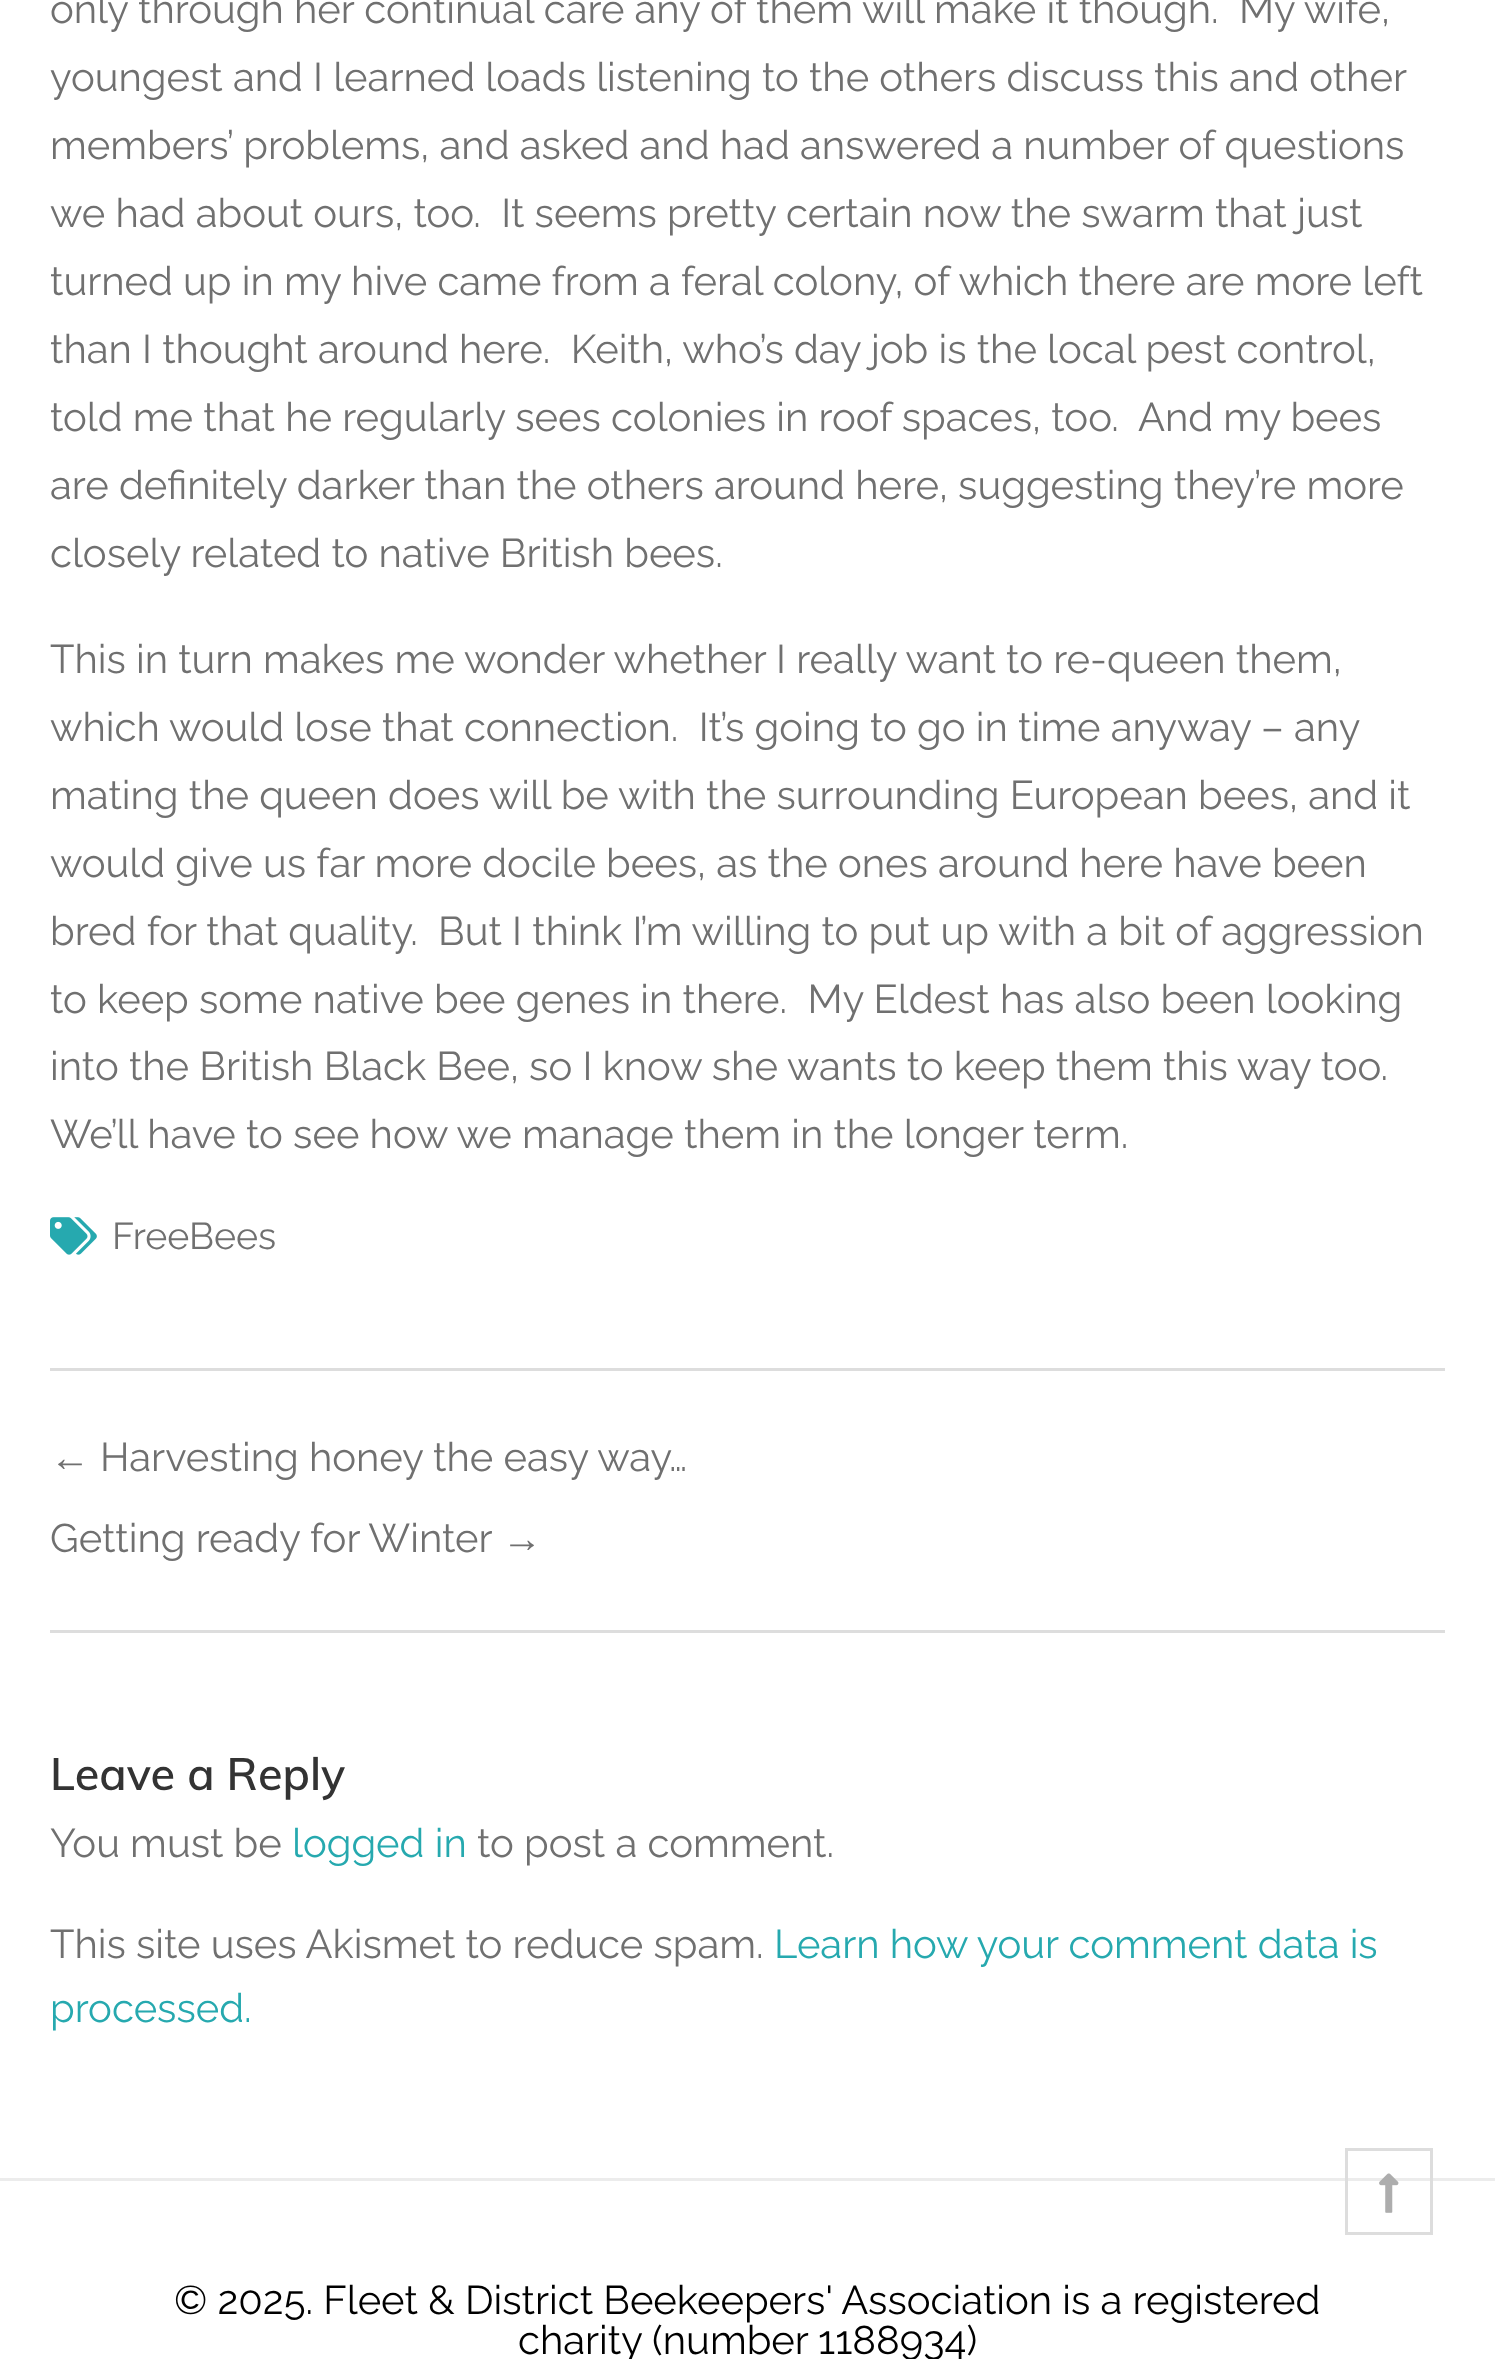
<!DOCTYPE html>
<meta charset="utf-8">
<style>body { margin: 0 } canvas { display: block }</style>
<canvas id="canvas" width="1495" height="2359"></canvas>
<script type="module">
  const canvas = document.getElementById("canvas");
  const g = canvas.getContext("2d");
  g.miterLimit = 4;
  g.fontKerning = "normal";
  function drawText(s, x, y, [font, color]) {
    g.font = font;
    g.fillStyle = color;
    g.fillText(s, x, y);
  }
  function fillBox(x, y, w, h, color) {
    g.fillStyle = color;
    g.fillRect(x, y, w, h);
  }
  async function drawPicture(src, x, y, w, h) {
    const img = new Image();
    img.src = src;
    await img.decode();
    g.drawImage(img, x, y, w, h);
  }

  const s1 = ["40px Raleway", "#707070"];
  const s2 = ["37.5px Raleway", "#707070"];
  const s3 = ["40px Liberation Sans", "#707070"];
  const s4 = ["600 45px Muli", "#333333"];
  const s5 = ["40px Raleway", "#26A9AF"];
  const s6 = ["40px Raleway", "#000000"];

  fillBox(0, 0, 1495, 2359, "#FFFFFF");
  drawText("only through her continual care any of them will make it though.  My wife,", 50, 23, s1);
  drawText("youngest and I learned loads listening to the others discuss this and other", 50, 91, s1);
  drawText("members’ problems, and asked and had answered a number of questions", 50, 159, s1);
  drawText("we had about ours, too.  It seems pretty certain now the swarm that just", 50, 227, s1);
  drawText("turned up in my hive came from a feral colony, of which there are more left", 50, 295, s1);
  drawText("than I thought around here.  Keith, who’s day job is the local pest control,", 50, 363, s1);
  drawText("told me that he regularly sees colonies in roof spaces, too.  And my bees", 50, 431, s1);
  drawText("are definitely darker than the others around here, suggesting they’re more", 50, 499, s1);
  drawText("closely related to native British bees.", 50, 567, s1);
  drawText("This in turn makes me wonder whether I really want to re-queen them,", 50, 673, s1);
  drawText("which would lose that connection.  It’s going to go in time anyway – any", 50, 741, s1);
  drawText("mating the queen does will be with the surrounding European bees, and it", 50, 809, s1);
  drawText("would give us far more docile bees, as the ones around here have been", 50, 877, s1);
  drawText("bred for that quality.  But I think I’m willing to put up with a bit of aggression", 50, 945, s1);
  drawText("to keep some native bee genes in there.  My Eldest has also been looking", 50, 1013, s1);
  drawText("into the British Black Bee, so I know she wants to keep them this way too.", 50, 1080, s1);
  drawText("We’ll have to see how we manage them in the longer term.", 50, 1148, s1);
  await drawPicture("pic1.png", 50, 1217, 47, 38);
  drawText("FreeBees", 112, 1249, s2);
  fillBox(50, 1368, 1395, 3, "#DDDDDD");
  fillBox(50, 1630, 1395, 3, "#DDDDDD");
  drawText("←", 50, 1471, s3);
  drawText("Harvesting honey the easy way…", 100, 1471, s1);
  drawText("Getting ready for Winter", 50, 1552, s1);
  drawText("→", 502, 1552, s3);
  drawText("Leave a Reply", 50, 1790, s4);
  drawText("You must be", 50, 1857, s1);
  drawText("logged in", 292, 1857, s5);
  drawText("to post a comment.", 477, 1857, s1);
  drawText("This site uses Akismet to reduce spam.", 50, 1958, s1);
  drawText("Learn how your comment data is", 774, 1958, s5);
  drawText("processed.", 50, 2022, s5);
  fillBox(0, 2178, 1495, 3, "#ECECEC");
  drawText("© 2025. Fleet & District Beekeepers' Association is a registered", 174, 2314, s6);
  drawText("charity (number 1188934)", 518, 2354, s6);
  g.strokeStyle = "#DDDDDD";
  g.lineWidth = 3;
  g.strokeRect(1346.5, 2149.5, 85, 84);
  await drawPicture("pic2.png", 1379, 2173, 20, 40);
</script>
